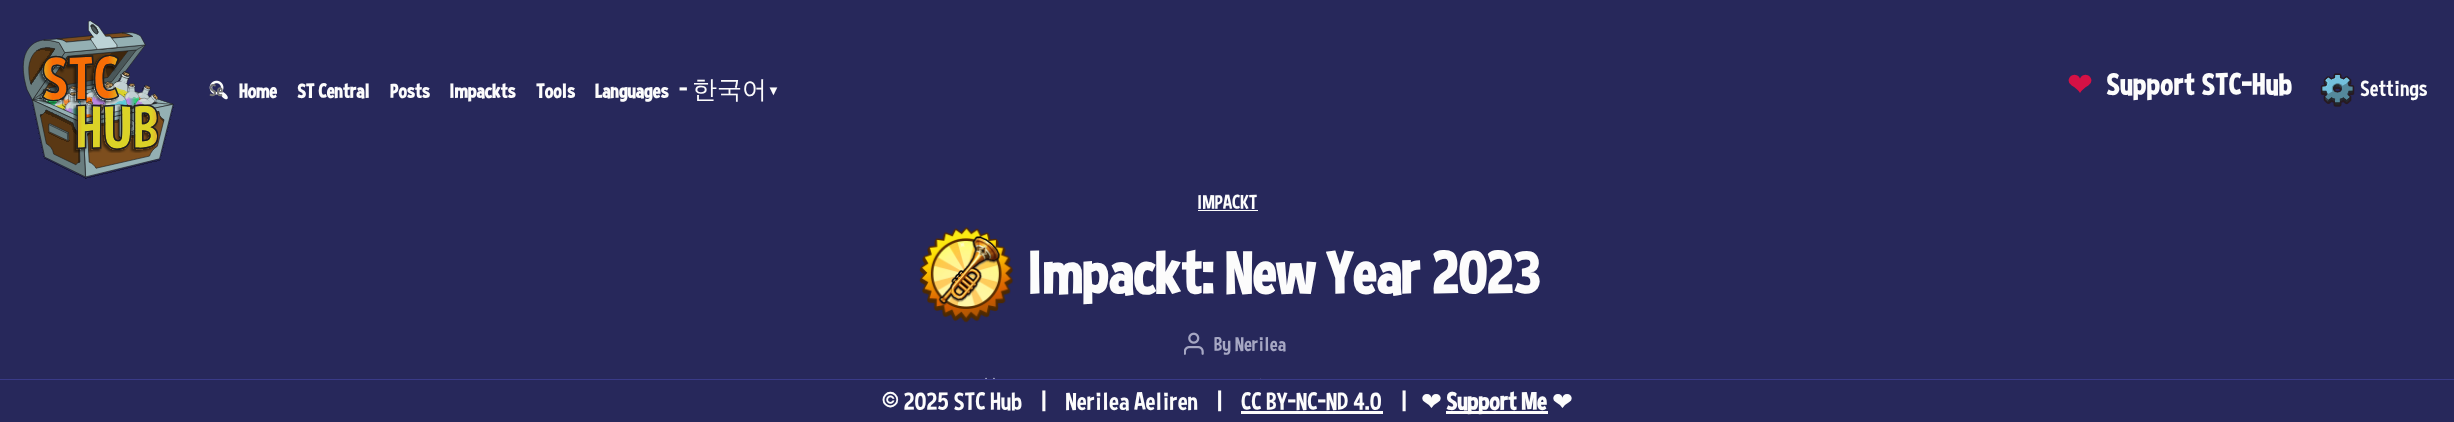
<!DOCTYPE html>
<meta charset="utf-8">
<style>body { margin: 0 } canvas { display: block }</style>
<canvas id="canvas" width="2454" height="422"></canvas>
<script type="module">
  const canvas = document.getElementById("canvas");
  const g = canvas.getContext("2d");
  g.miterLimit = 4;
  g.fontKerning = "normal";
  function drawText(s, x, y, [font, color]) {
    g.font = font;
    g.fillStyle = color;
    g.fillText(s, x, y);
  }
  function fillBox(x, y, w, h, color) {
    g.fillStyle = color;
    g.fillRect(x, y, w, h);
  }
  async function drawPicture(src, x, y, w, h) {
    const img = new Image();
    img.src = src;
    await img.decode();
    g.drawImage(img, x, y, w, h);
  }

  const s1 = ["17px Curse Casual", "#757575"];
  const s2 = ["bold 20px Curse Casual", "#FCFCFC"];
  const s3 = ["25px Curse Casual", "#FCFCFC"];
  const s4 = ["500 25px WenQuanYi Zen Hei", "#FCFCFC"];
  const s5 = ["bold 13px Liberation Serif", "#FCFCFC"];
  const s6 = ["bold 30px DejaVu Sans", "#D51145"];
  const s7 = ["bold 30px Curse Casual", "#FCFCFC"];
  const s8 = ["22px Curse Casual", "#FCFCFC"];
  const s9 = ["20px Curse Casual", "#FCFCFC"];
  const s10 = ["bold 60px Curse Casual", "#FCFCFC"];
  const s11 = ["20px Curse Casual", "#A6A7C3"];
  const s12 = ["25px DejaVu Sans", "#FCFCFC"];
  const s13 = ["bold 25px Curse Casual", "#FCFCFC"];

  fillBox(0, 0, 2454, 422, "#27285B");
  await drawPicture("pic1.png", 22, 20, 152, 159);
  await drawPicture("pic2.png", 209, 80, 19, 20);
  drawText("Se", 209, 96, s1);
  drawText("Home", 239, 98, s2);
  drawText("ST Central", 297, 98, s2);
  drawText("Posts", 390, 98, s2);
  drawText("Impackts", 449, 98, s2);
  drawText("Tools", 536, 98, s2);
  drawText("Languages", 595, 98, s2);
  drawText("-", 679, 98, s3);
  drawText("한국어", 692, 98, s4);
  drawText("▼", 767, 95, s5);
  g.letterSpacing = "0.6px";
  drawText("❤", 2067, 95, s6);
  drawText("Support STC-Hub", 2106, 95, s7);
  await drawPicture("pic3.png", 2320, 73, 35, 34);
  g.letterSpacing = "0px";
  drawText("Settings", 2360, 96, s8);
  drawText("IMPACKT", 1197, 209, s9);
  fillBox(1198, 210, 60, 1, "#FCFCFC");
  await drawPicture("pic4.png", 919, 227, 95, 96);
  drawText("Impackt: New Year 2023", 1026, 294, s10);
  await drawPicture("pic5.png", 1184, 332, 20, 23);
  drawText("By Nerilea", 1214, 351, s11);
  await drawPicture("pic6.png", 985, 377, 10, 2);
  await drawPicture("pic7.png", 1260, 378, 1, 1);
  fillBox(0, 379, 2454, 1, "#393A88");
  drawText("© 2025 STC Hub    |    Nerilea Aeliren    |", 882, 410, s3);
  drawText("CC BY-NC-ND 4.0", 1241, 410, s3);
  fillBox(1241, 411, 142, 3, "#FCFCFC");
  drawText("|", 1402, 410, s3);
  drawText("❤", 1421, 410, s12);
  fillBox(1446, 411, 102, 3, "#FCFCFC");
  drawText("Support Me", 1446, 410, s13);
  drawText("❤", 1552, 410, s12);
</script>
